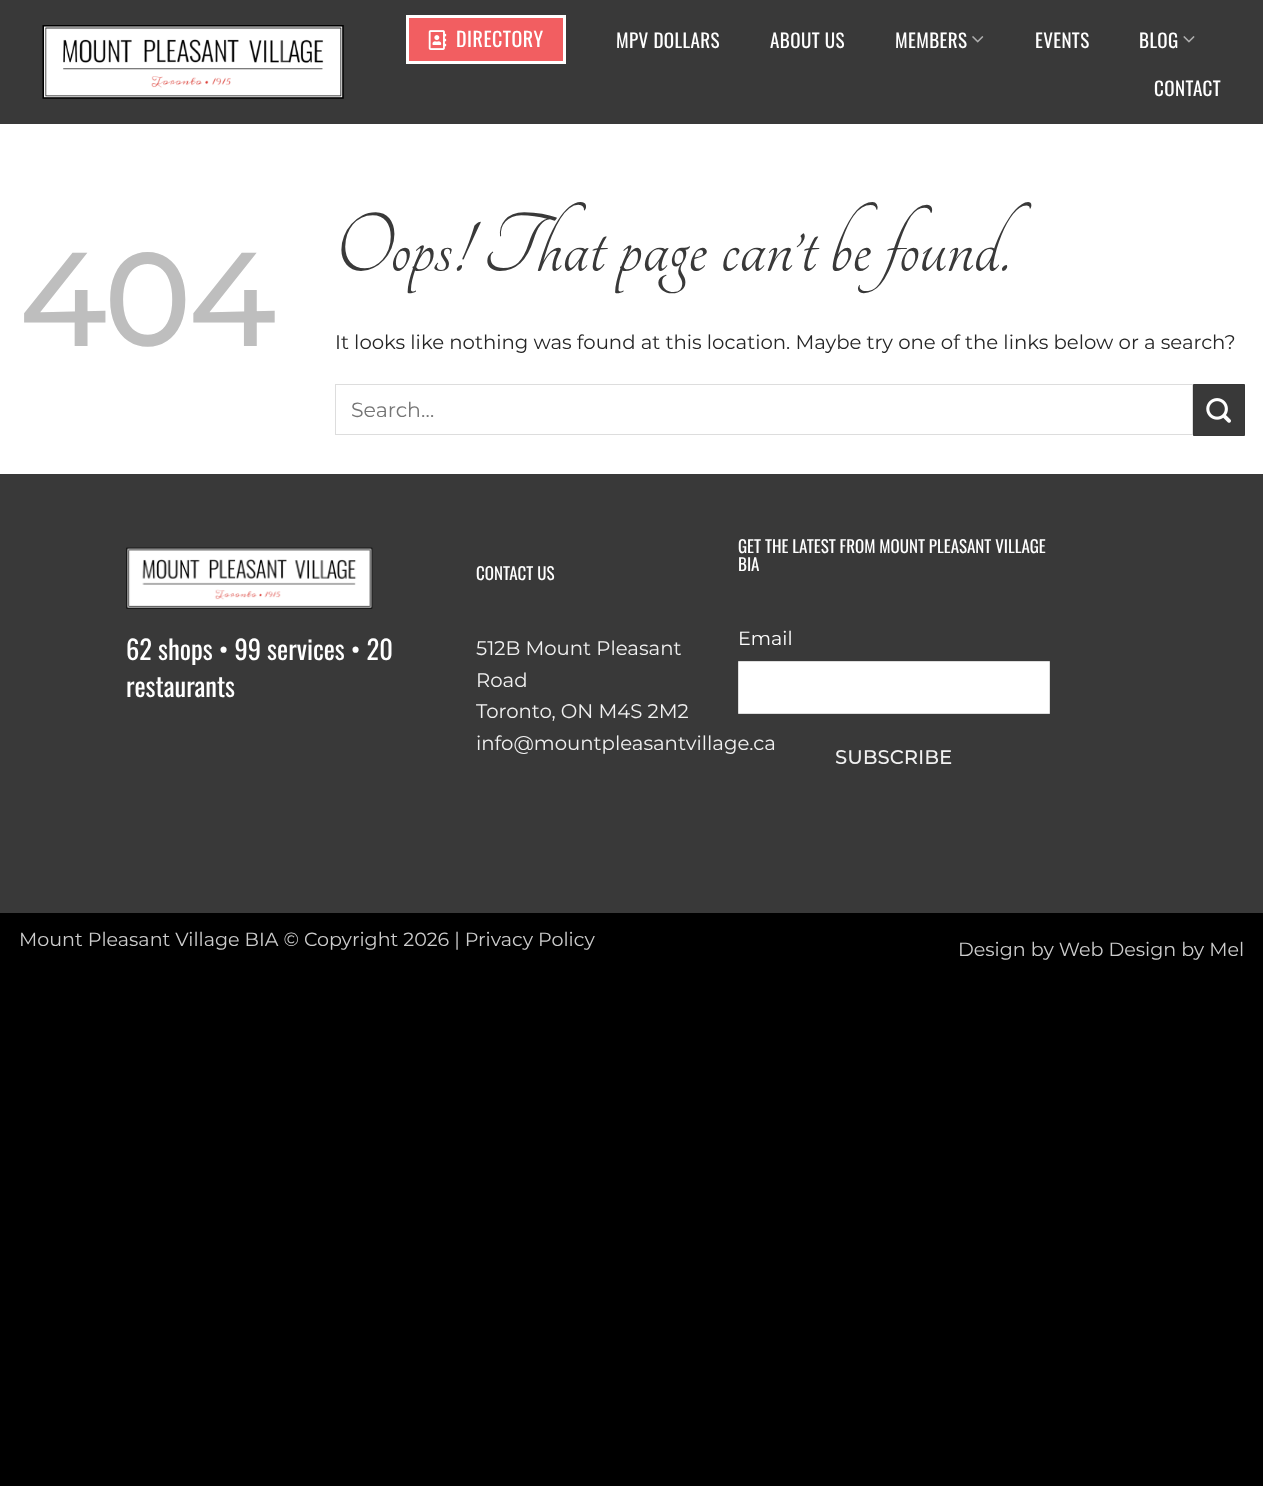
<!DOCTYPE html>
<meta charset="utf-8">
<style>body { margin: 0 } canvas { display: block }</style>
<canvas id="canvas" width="1263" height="1486"></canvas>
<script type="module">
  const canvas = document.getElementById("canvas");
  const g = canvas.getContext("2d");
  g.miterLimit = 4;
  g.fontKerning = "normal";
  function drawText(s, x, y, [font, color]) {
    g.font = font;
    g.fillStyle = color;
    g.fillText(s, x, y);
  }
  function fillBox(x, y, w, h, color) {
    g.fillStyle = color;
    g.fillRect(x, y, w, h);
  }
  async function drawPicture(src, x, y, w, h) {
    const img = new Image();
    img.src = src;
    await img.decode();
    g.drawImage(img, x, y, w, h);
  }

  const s1 = ["20px Oswald", "#FFFFFF"];
  const s2 = ["19.1px Oswald", "#FFFFFF"];
  const s3 = ["bold 128px Montserrat", "#BEBEBE"];
  const s4 = ["91.25px Tangerine", "#393939"];
  const s5 = ["100 19.7px Montserrat", "#262626"];
  const s6 = ["100 20.5px Montserrat", "#757575"];
  const s7 = ["26.5px Oswald", "#FFFFFF"];
  const s8 = ["17px Oswald", "#FFFFFF"];
  const s9 = ["100 19.7px Montserrat", "#F1F1F1"];
  const s10 = ["100 19.1px Montserrat", "#FFFFFF"];
  const s11 = ["bold 19px Montserrat", "#F1F1F1"];
  const s12 = ["100 19.1px Montserrat", "#CCCCCC"];

  fillBox(0, 0, 1263, 1486, "#000000");
  fillBox(0, 124, 1263, 350, "#FFFFFF");
  fillBox(0, 0, 1263, 124, "#393939");
  await drawPicture("pic1.png", 42, 25, 302, 74);
  g.fillStyle = "#F25E61";
  g.beginPath();
  g.rect(407.5, 16.5, 157, 46);
  g.fill();
  g.strokeStyle = "#FFFFFF";
  g.lineWidth = 3;
  g.stroke();
  await drawPicture("pic2.png", 428, 30, 19, 20);
  g.letterSpacing = "0.5px";
  drawText("DIRECTORY", 456, 47, s1);
  g.letterSpacing = "0.4px";
  drawText("MPV DOLLARS", 616, 48, s2);
  drawText("ABOUT US", 770, 48, s2);
  drawText("MEMBERS", 895, 48, s2);
  await drawPicture("pic3.png", 972, 36, 12, 7);
  drawText("EVENTS", 1035, 48, s2);
  drawText("BLOG", 1139, 48, s2);
  await drawPicture("pic4.png", 1183, 36, 12, 7);
  drawText("CONTACT", 1154, 96, s2);
  g.letterSpacing = "0px";
  drawText("404", 19, 346, s3);
  drawText("Oops! That page can’t be found.", 335, 271, s4);
  drawText("It looks like nothing was found at this location. Maybe try one of the links below or a search?", 335, 349, s5);
  g.strokeStyle = "#DDDDDD";
  g.lineWidth = 1;
  g.strokeRect(335.5, 384.5, 857, 50);
  drawText("Search…", 351, 417, s6);
  g.fillStyle = "#393939";
  g.beginPath();
  g.rect(1193.5, 384.5, 51, 51);
  g.fill();
  g.strokeStyle = "#363636";
  g.stroke();
  await drawPicture("pic5.png", 1206, 398, 25, 25);
  fillBox(0, 474, 1263, 439, "#393939");
  await drawPicture("pic6.png", 126, 547, 247, 62);
  drawText("62 shops • 99 services • 20", 126, 660, s7);
  drawText("restaurants", 126, 697, s7);
  drawText("CONTACT US", 476, 580, s8);
  drawText("512B Mount Pleasant", 476, 655, s9);
  drawText("Road", 476, 687, s9);
  drawText("Toronto, ON M4S 2M2", 476, 718, s9);
  drawText("info@mountpleasantvillage.ca", 476, 750, s9);
  drawText("GET THE LATEST FROM MOUNT PLEASANT VILLAGE", 738, 553, s8);
  drawText("BIA", 738, 571, s8);
  drawText("Email", 738, 645, s10);
  g.beginPath();
  g.rect(738.5, 661.5, 311, 52);
  g.fill();
  g.strokeStyle = "#DDDDDD";
  g.stroke();
  g.letterSpacing = "0.5px";
  drawText("SUBSCRIBE", 835, 764, s11);
  g.letterSpacing = "0px";
  drawText("Mount Pleasant Village BIA © Copyright 2026 | Privacy Policy", 19, 946, s12);
  drawText("Design by Web Design by Mel", 958, 956, s12);
</script>
